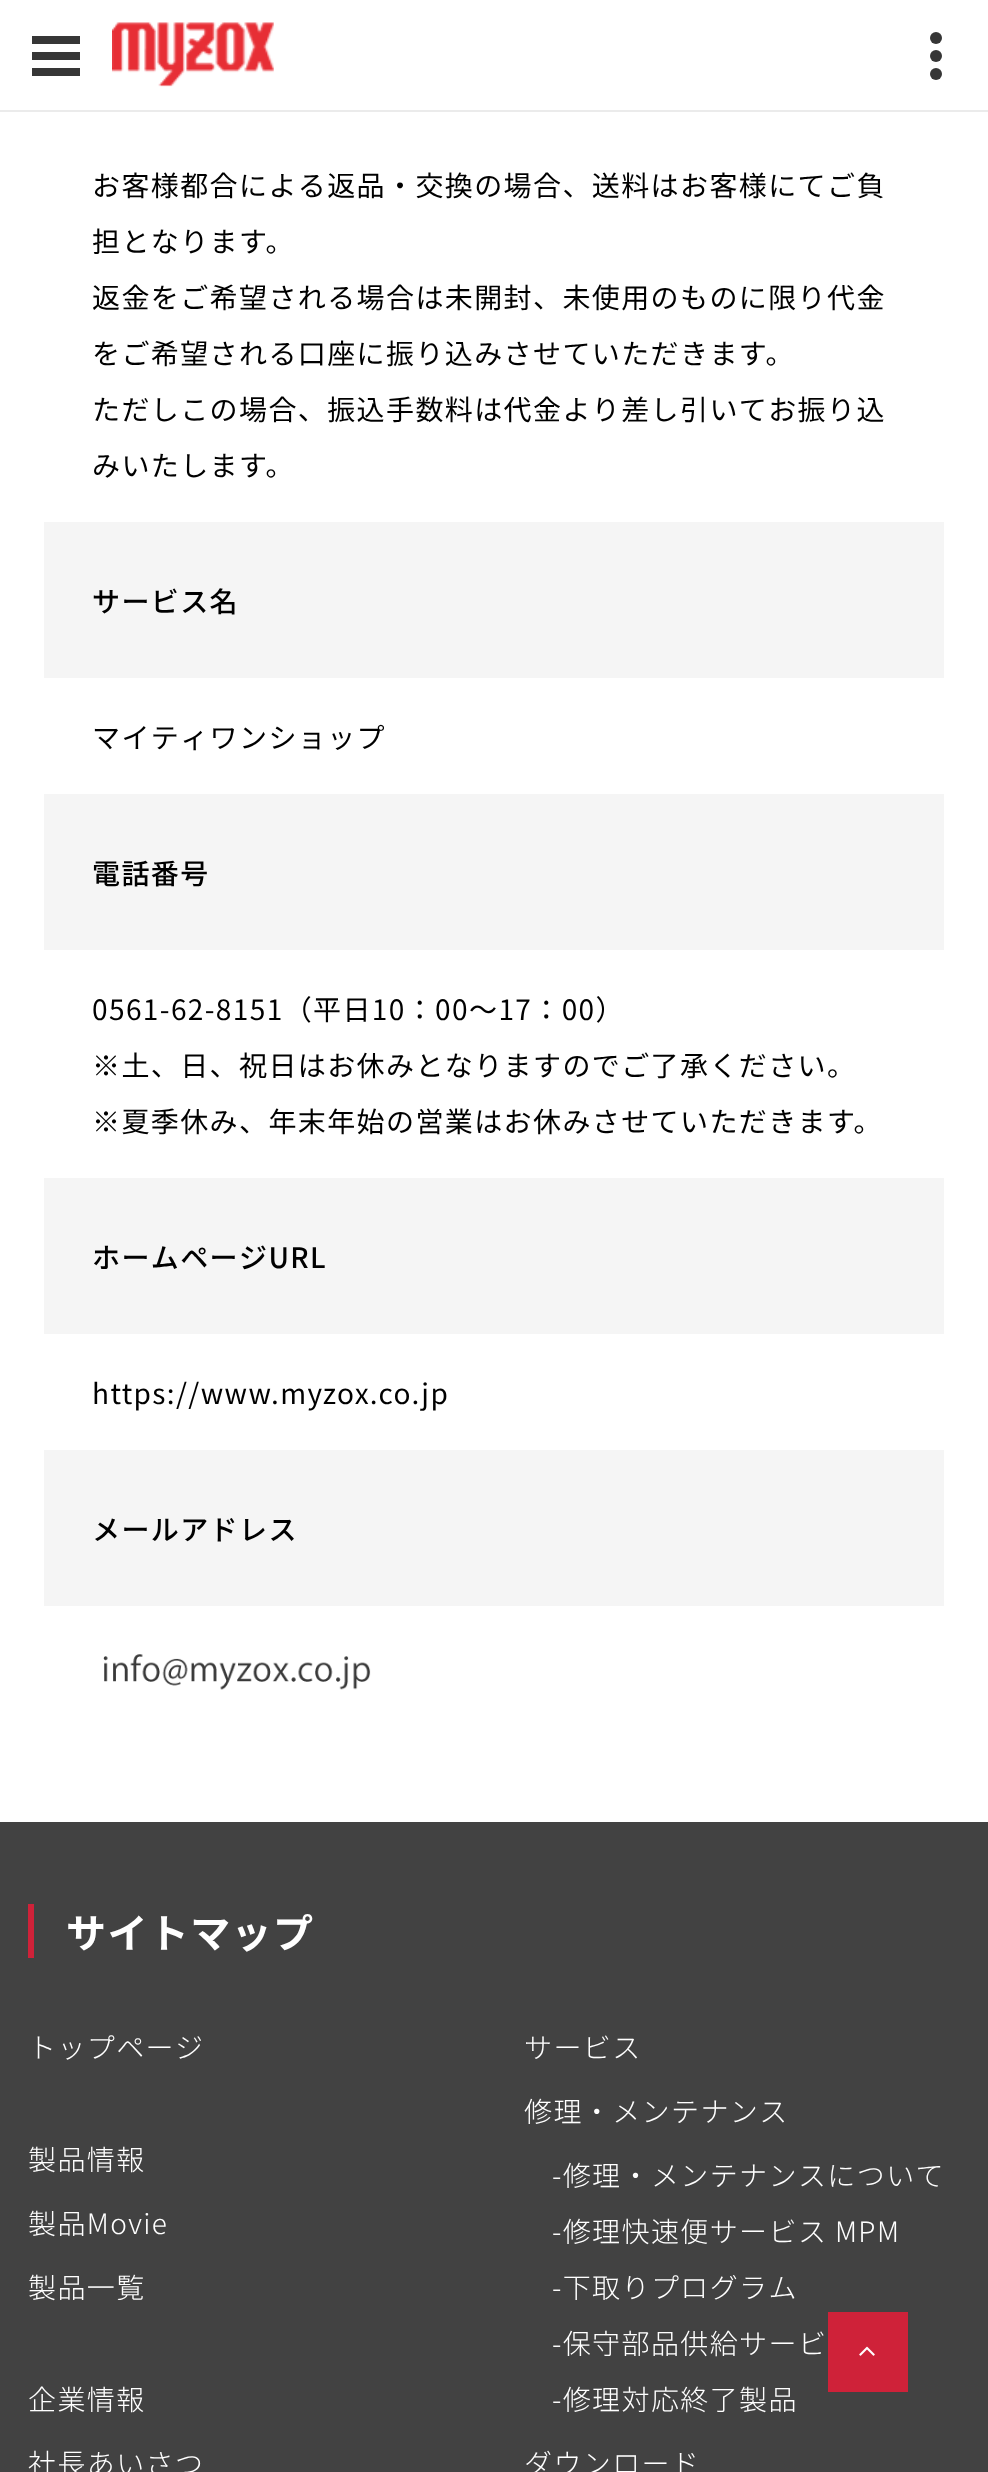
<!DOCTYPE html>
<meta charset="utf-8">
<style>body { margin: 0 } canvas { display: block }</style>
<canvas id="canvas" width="988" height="2472"></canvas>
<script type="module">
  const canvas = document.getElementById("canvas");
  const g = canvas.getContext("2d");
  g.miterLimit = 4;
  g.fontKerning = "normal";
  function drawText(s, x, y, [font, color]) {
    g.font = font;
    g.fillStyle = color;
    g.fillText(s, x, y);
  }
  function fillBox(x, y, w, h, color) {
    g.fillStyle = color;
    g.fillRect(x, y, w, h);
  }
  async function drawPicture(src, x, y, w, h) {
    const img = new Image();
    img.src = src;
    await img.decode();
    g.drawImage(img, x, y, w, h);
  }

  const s1 = ["28px Noto Sans JP", "#000000"];
  const s2 = ["500 28px Noto Sans JP", "#000000"];
  const s3 = ["bold 40px Noto Sans JP", "#FFFFFF"];
  const s4 = ["300 28px Noto Sans JP", "#FFFFFF"];

  fillBox(0, 0, 988, 2472, "#FFFFFF");
  fillBox(0, 110, 988, 2, "#EBEBEB");
  fillBox(32, 52, 48, 8, "#363636");
  fillBox(32, 36, 48, 8, "#363636");
  fillBox(32, 68, 48, 8, "#363636");
  await drawPicture("pic1.png", 112, 22, 162, 65);
  g.beginPath();
  g.arc(936, 56, 6, 0, Math.PI * 2);
  g.fill();
  g.beginPath();
  g.arc(936, 38, 6, 0, Math.PI * 2);
  g.fill();
  g.beginPath();
  g.arc(936, 74, 6, 0, Math.PI * 2);
  g.fill();
  g.letterSpacing = "1.4px";
  drawText("お客様都合による返品・交換の場合、送料はお客様にてご負", 92, 196, s1);
  drawText("担となります。", 92, 252, s1);
  drawText("返金をご希望される場合は未開封、未使用のものに限り代金", 92, 308, s1);
  drawText("をご希望される口座に振り込みさせていただきます。", 92, 364, s1);
  drawText("ただしこの場合、振込手数料は代金より差し引いてお振り込", 92, 420, s1);
  drawText("みいたします。", 92, 476, s1);
  fillBox(44, 522, 900, 156, "#F5F5F5");
  drawText("サービス名", 92, 612, s2);
  drawText("マイティワンショップ", 92, 748, s1);
  fillBox(44, 794, 900, 156, "#F5F5F5");
  drawText("電話番号", 92, 884, s2);
  drawText("0561-62-8151（平日10：00〜17：00）", 92, 1020, s1);
  drawText("※土、日、祝日はお休みとなりますのでご了承ください。", 92, 1076, s1);
  drawText("※夏季休み、年末年始の営業はお休みさせていただきます。", 92, 1132, s1);
  fillBox(44, 1178, 900, 156, "#F5F5F5");
  drawText("ホームページURL", 92, 1268, s2);
  drawText("https://www.myzox.co.jp", 92, 1404, s1);
  fillBox(44, 1450, 900, 156, "#F5F5F5");
  drawText("メールアドレス", 92, 1540, s2);
  await drawPicture("pic2.png", 103, 1654, 268, 36);
  fillBox(0, 1822, 988, 650, "#424242");
  fillBox(28, 1904, 6, 54, "#CF2239");
  drawText("サイトマップ", 66, 1948, s3);
  drawText("トップページ", 28, 2058, s4);
  drawText("製品情報", 28, 2170, s4);
  drawText("製品Movie", 28, 2234, s4);
  drawText("製品一覧", 28, 2298, s4);
  drawText("企業情報", 28, 2410, s4);
  drawText("社長あいさつ", 28, 2474, s4);
  drawText("サービス", 524, 2058, s4);
  drawText("修理・メンテナンス", 524, 2122, s4);
  drawText("-修理・メンテナンスについて", 552, 2186, s4);
  drawText("-修理快速便サービス MPM", 552, 2242, s4);
  drawText("-下取りプログラム", 552, 2298, s4);
  drawText("-保守部品供給サービ", 552, 2354, s4);
  drawText("-修理対応終了製品", 552, 2410, s4);
  drawText("ダウンロード", 524, 2474, s4);
  fillBox(828, 2312, 80, 80, "#CF2239");
  await drawPicture("pic3.png", 859, 2346, 16, 10);
</script>
